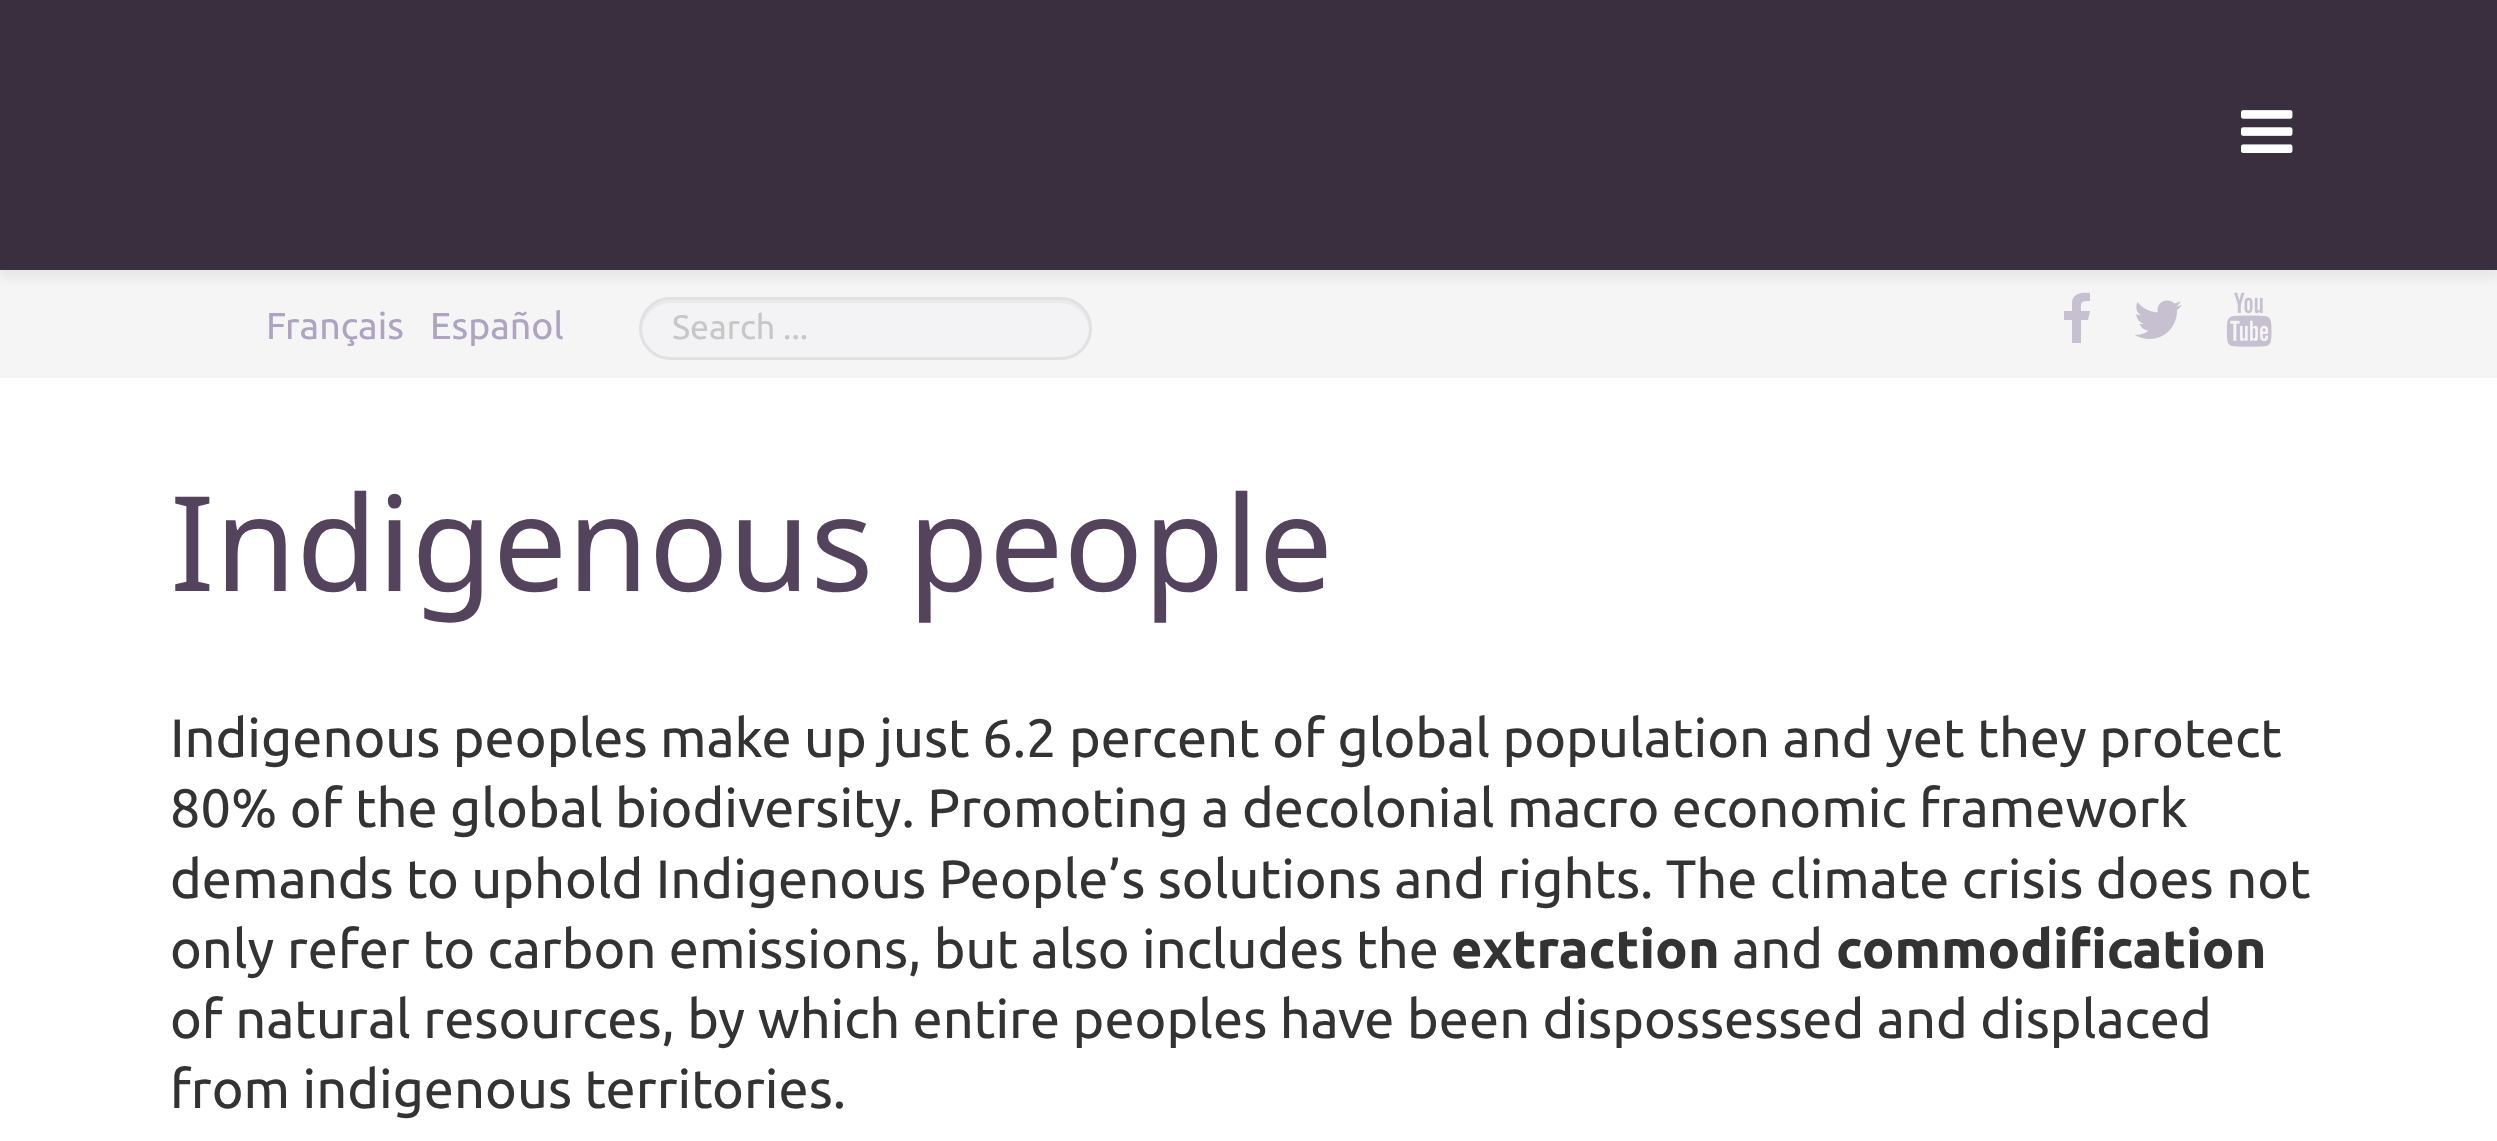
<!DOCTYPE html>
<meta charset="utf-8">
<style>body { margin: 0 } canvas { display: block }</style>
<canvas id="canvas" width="2497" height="1141"></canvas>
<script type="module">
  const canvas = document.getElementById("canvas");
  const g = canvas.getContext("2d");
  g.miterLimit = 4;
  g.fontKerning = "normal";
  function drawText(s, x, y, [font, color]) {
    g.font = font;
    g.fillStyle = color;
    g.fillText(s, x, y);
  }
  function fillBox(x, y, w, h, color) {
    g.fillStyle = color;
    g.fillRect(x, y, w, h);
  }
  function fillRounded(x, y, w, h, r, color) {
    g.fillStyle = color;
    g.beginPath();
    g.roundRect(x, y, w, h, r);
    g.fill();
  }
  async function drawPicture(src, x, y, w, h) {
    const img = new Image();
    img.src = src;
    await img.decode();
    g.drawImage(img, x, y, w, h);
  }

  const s1 = ["37.5px Ubuntu", "#AEA3C0"];
  const s2 = ["34px Ubuntu", "#C7C7C7"];
  const s3 = ["132px Noto Sans", "#53435C"];
  const s4 = ["54px Ubuntu", "#333333"];
  const s5 = ["bold 54px Ubuntu", "#333333"];

  fillBox(0, 0, 2497, 1141, "#FFFFFF");
  fillBox(0, 270, 2497, 108, "#F5F5F5");
  g.fillStyle = "#C6C0D0";
  g.beginPath();
  g.moveTo(2090, 293);
  g.bezierCurveTo(2082, 292, 2073, 293, 2072, 302);
  g.lineTo(2072, 311);
  g.lineTo(2064, 311);
  g.lineTo(2064, 320);
  g.lineTo(2072, 320);
  g.lineTo(2072, 343);
  g.lineTo(2081, 343);
  g.lineTo(2081, 320);
  g.lineTo(2088, 320);
  g.lineTo(2090, 311);
  g.lineTo(2081, 311);
  g.bezierCurveTo(2081, 302, 2080, 301, 2090, 301);
  g.closePath();
  g.fill();
  await drawPicture("pic3.png", 2226, 292, 46, 55);
  g.fillStyle = "rgba(0, 0, 0, 0.05)";
  g.filter = "blur(4.5px)";
  g.beginPath();
  g.rect(0, 9, 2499, 270);
  g.fill();
  g.filter = "none";
  fillBox(0, 0, 2497, 270, "#392F3F");
  await drawPicture("pic1.png", 2241, 110, 52, 43);
  drawText("Français", 266, 339, s1);
  drawText("Español", 430, 339, s1);
  fillRounded(639, 297, 453, 63, 31.5, "#F3F2F4");
  g.fillStyle = "#EAE9EB";
  g.beginPath();
  g.moveTo(670, 303);
  g.lineTo(1060, 303);
  g.bezierCurveTo(1075, 303, 1088, 315, 1089, 330);
  g.bezierCurveTo(1090, 314, 1077, 300, 1060, 300);
  g.lineTo(670, 300);
  g.bezierCurveTo(654, 300, 641, 314, 642, 330);
  g.bezierCurveTo(643, 315, 656, 303, 670, 303);
  g.closePath();
  g.fill();
  g.beginPath();
  g.roundRect(640.5, 298.5, 450, 60, 30);
  g.strokeStyle = "#E1E1E1";
  g.lineWidth = 3;
  g.stroke();
  drawText("Search ...", 672, 339, s2);
  await drawPicture("pic2.png", 2134, 300, 48, 39);
  drawText("Indigenous people", 170, 591, s3);
  drawText("Indigenous peoples make up just 6.2 percent of global population and yet they protect", 170, 757, s4);
  drawText("80% of the global biodiversity. Promoting a decolonial macro economic framework", 170, 827, s4);
  drawText("demands to uphold Indigenous People’s solutions and rights. The climate crisis does not", 170, 898, s4);
  drawText("only refer to carbon emissions, but also includes the", 170, 968, s4);
  drawText("extraction", 1451, 968, s5);
  drawText("and", 1732, 968, s4);
  drawText("commodification", 1836, 968, s5);
  drawText("of natural resources, by which entire peoples have been dispossessed and displaced", 170, 1038, s4);
  drawText("from indigenous territories.", 170, 1108, s4);
</script>
